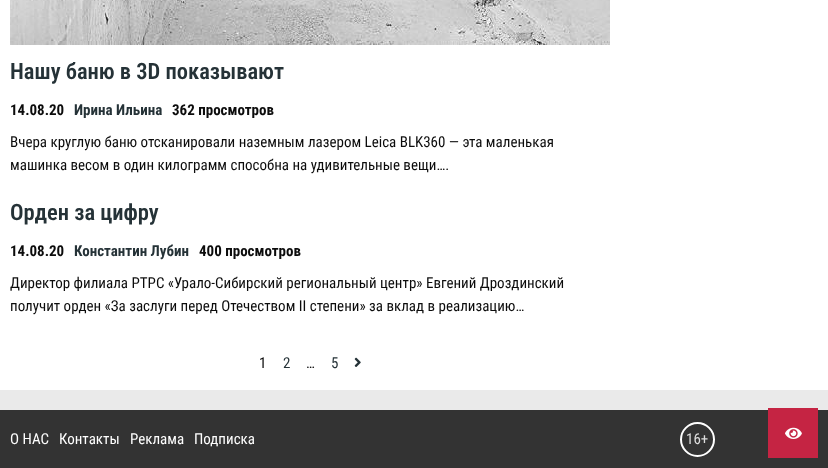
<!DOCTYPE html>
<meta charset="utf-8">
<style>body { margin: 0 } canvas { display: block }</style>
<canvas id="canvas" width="828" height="468"></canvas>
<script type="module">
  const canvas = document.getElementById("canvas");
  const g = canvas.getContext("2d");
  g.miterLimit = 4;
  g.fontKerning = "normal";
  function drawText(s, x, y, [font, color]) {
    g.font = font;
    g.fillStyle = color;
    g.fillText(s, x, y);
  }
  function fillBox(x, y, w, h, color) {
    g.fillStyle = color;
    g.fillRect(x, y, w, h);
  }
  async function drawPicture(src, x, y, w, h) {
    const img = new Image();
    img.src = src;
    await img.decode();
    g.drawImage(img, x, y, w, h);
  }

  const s1 = ["600 22.5px Roboto Condensed", "#253237"];
  const s2 = ["bold 15px Roboto Condensed", "#0C0C0C"];
  const s3 = ["bold 15px Roboto Condensed", "#253237"];
  const s4 = ["15px Roboto Condensed", "#0C0C0C"];
  const s5 = ["15px Roboto Condensed", "#253237"];
  const s6 = ["15px Roboto Condensed", "#FFFFFF"];
  const s7 = ["15px Roboto Condensed", "#DDDDDD"];

  fillBox(0, 0, 828, 468, "#EAEAEA");
  fillBox(0, 0, 828, 390, "#FFFFFF");
  await drawPicture("pic1.png", 10, 0, 600, 45);
  drawText("Нашу баню в 3D показывают", 10, 79, s1);
  drawText("14.08.20", 10, 115, s2);
  drawText("Ирина Ильина", 74, 115, s3);
  drawText("362 просмотров", 172, 115, s2);
  drawText("Вчера круглую баню отсканировали наземным лазером Leica BLK360 — эта маленькая", 10, 147, s4);
  drawText("машинка весом в один килограмм способна на удивительные вещи….", 10, 170, s4);
  drawText("Орден за цифру", 10, 220, s1);
  drawText("14.08.20", 10, 256, s2);
  drawText("Константин Лубин", 74, 256, s3);
  drawText("400 просмотров", 199, 256, s2);
  drawText("Директор филиала РТРС «Урало-Сибирский региональный центр» Eвгений Дроздинский", 10, 288, s4);
  drawText("получит орден «За заслуги перед Отечеством II степени» за вклад в реализацию…", 10, 311, s4);
  drawText("1", 259, 368, s4);
  drawText("2", 283, 368, s5);
  drawText("5", 331, 368, s5);
  await drawPicture("pic2.png", 354, 357, 7, 10);
  drawText("…", 306, 368, s4);
  fillBox(0, 410, 828, 58, "#333333");
  drawText("О НАС", 10, 444, s6);
  drawText("Контакты", 59, 444, s6);
  drawText("Реклама", 130, 444, s6);
  drawText("Подписка", 194, 444, s6);
  g.beginPath();
  g.arc(697.5, 439.5, 16.5, 0, Math.PI * 2);
  g.strokeStyle = "#FFFFFF";
  g.lineWidth = 2;
  g.stroke();
  drawText("16+", 686, 444, s7);
  fillBox(768, 408, 50, 50, "#C52443");
  await drawPicture("pic3.png", 785, 427, 17, 12);
</script>
